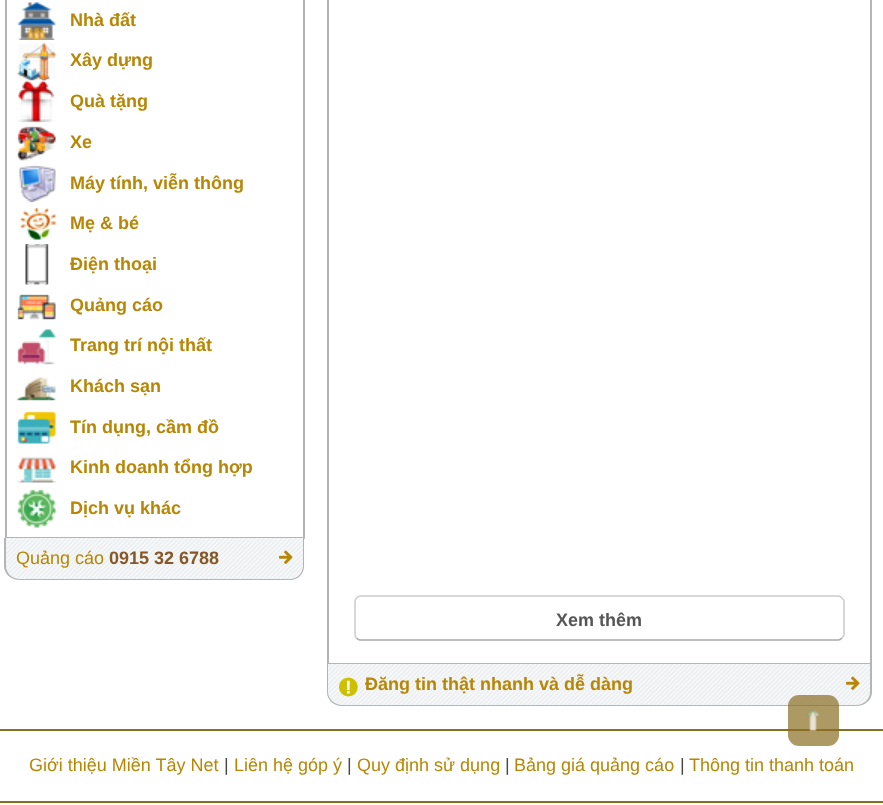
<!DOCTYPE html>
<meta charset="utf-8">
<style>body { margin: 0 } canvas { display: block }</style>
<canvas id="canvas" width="883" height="805"></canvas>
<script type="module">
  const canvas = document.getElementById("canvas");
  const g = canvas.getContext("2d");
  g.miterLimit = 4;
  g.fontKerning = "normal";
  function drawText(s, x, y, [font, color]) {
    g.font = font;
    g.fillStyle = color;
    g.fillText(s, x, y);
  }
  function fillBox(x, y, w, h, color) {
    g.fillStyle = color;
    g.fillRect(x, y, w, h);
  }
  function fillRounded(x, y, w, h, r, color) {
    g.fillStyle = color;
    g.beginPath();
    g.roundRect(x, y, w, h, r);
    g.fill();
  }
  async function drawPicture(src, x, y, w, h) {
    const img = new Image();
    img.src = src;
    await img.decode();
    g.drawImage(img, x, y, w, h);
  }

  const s1 = ["bold 18px Liberation Sans", "#B88605"];
  const s2 = ["18px Liberation Sans", "#B88605"];
  const s3 = ["bold 18px Liberation Sans", "#855826"];
  const s4 = ["bold 18px Liberation Sans", "#565656"];
  const s5 = ["18px Liberation Sans", "#484848"];

  fillBox(0, 0, 883, 805, "#FFFFFF");
  fillBox(303, 0, 2, 539, "#B5B5B5");
  fillBox(5, 537, 300, 2, "#B5B5B5");
  fillBox(5, 0, 2, 539, "#B5B5B5");
  await drawPicture("pic1.png", 17, 2, 39, 38);
  drawText("Nhà đất", 70, 26, s1);
  await drawPicture("pic2.png", 17, 42, 39, 39);
  drawText("Xây dựng", 70, 66, s1);
  await drawPicture("pic3.png", 17, 80, 38, 43);
  drawText("Quà tặng", 70, 107, s1);
  await drawPicture("pic4.png", 17, 122, 39, 39);
  drawText("Xe", 70, 148, s1);
  await drawPicture("pic5.png", 19, 165, 37, 38);
  drawText("Máy tính, viễn thông", 70, 189, s1);
  await drawPicture("pic6.png", 20, 207, 37, 33);
  drawText("Mẹ & bé", 70, 229, s1);
  await drawPicture("pic7.png", 25, 244, 24, 41);
  drawText("Điện thoại", 70, 270, s1);
  await drawPicture("pic8.png", 17, 294, 39, 26);
  drawText("Quảng cáo", 70, 311, s1);
  await drawPicture("pic9.png", 17, 329, 39, 36);
  drawText("Trang trí nội thất", 70, 351, s1);
  await drawPicture("pic10.png", 16, 377, 40, 24);
  drawText("Khách sạn", 70, 392, s1);
  await drawPicture("pic11.png", 17, 411, 39, 33);
  drawText("Tín dụng, cầm đồ", 70, 433, s1);
  await drawPicture("pic12.png", 17, 457, 39, 26);
  drawText("Kinh doanh tổng hợp", 70, 473, s1);
  await drawPicture("pic13.png", 17, 489, 39, 39);
  drawText("Dịch vụ khác", 70, 514, s1);
  await drawPicture("pic14.png", 4, 538, 301, 42);
  g.fillStyle = "#B5B5B5";
  g.beginPath();
  g.moveTo(4, 538);
  g.lineTo(304, 538);
  g.lineTo(304, 566);
  g.bezierCurveTo(304, 574, 298, 580, 290, 580);
  g.lineTo(20, 580);
  g.bezierCurveTo(11, 580, 4, 574, 4, 566);
  g.closePath();
  g.moveTo(6, 538);
  g.lineTo(303, 538);
  g.lineTo(303, 566);
  g.bezierCurveTo(303, 573, 297, 579, 290, 579);
  g.lineTo(20, 579);
  g.bezierCurveTo(12, 579, 6, 573, 6, 566);
  g.closePath();
  g.fill("evenodd");
  drawText("Quảng cáo", 16, 564, s2);
  drawText("0915 32 6788", 109, 564, s3);
  await drawPicture("pic15.png", 279, 550, 14, 14);
  fillBox(870, 0, 2, 665, "#B5B5B5");
  fillBox(327, 663, 545, 1, "#B5B5B5");
  fillBox(327, 0, 2, 665, "#B5B5B5");
  g.beginPath();
  g.moveTo(842, 638);
  g.bezierCurveTo(841, 639, 840, 640, 838.5, 640);
  g.lineTo(360, 640);
  g.bezierCurveTo(358.5, 640, 357.5, 639, 356.5, 638);
  g.strokeStyle = "#ABABAB";
  g.lineWidth = 1.5;
  g.stroke();
  g.beginPath();
  g.moveTo(356.5, 638);
  g.bezierCurveTo(355.5, 637, 355, 636, 355, 634.5);
  g.lineTo(355, 601.5);
  g.bezierCurveTo(355, 600, 355.5, 599, 356.5, 598);
  g.bezierCurveTo(357.5, 597, 358.5, 596, 360, 596);
  g.lineTo(838.5, 596);
  g.bezierCurveTo(840, 596, 841, 597, 842, 598);
  g.bezierCurveTo(843, 599, 844, 600, 844, 601.5);
  g.lineTo(844, 634.5);
  g.bezierCurveTo(844, 636, 843, 637, 842, 638);
  g.strokeStyle = "#CCCCCC";
  g.stroke();
  drawText("Xem thêm", 556, 626, s4);
  await drawPicture("pic16.png", 327, 664, 545, 42);
  g.fillStyle = "#B5B5B5";
  g.beginPath();
  g.moveTo(327, 664);
  g.lineTo(872, 664);
  g.lineTo(872, 692);
  g.bezierCurveTo(872, 700, 865, 706, 856, 706);
  g.lineTo(342, 706);
  g.bezierCurveTo(334, 706, 327, 700, 327, 692);
  g.closePath();
  g.moveTo(328, 664);
  g.lineTo(870, 664);
  g.lineTo(870, 692);
  g.bezierCurveTo(870, 699, 864, 705, 856, 705);
  g.lineTo(342, 705);
  g.bezierCurveTo(335, 705, 328, 699, 328, 692);
  g.closePath();
  g.fill("evenodd");
  await drawPicture("pic17.png", 339, 677, 19, 20);
  drawText("Đăng tin thật nhanh và dễ dàng", 365, 690, s1);
  await drawPicture("pic18.png", 846, 676, 14, 14);
  fillBox(0, 729, 883, 2, "#8A6E22");
  fillRounded(788, 695, 51, 51, 11, "rgba(138, 110, 34, 0.7)");
  await drawPicture("pic19.png", 806, 709, 14, 22);
  drawText("Giới thiệu Miền Tây Net", 29, 771, s2);
  drawText("|", 224, 771, s5);
  drawText("Liên hệ góp ý", 234, 771, s2);
  drawText("|", 347, 771, s5);
  drawText("Quy định sử dụng", 357, 771, s2);
  drawText("|", 505, 771, s5);
  drawText("Bảng giá quảng cáo", 514, 771, s2);
  drawText("|", 680, 771, s5);
  drawText("Thông tin thanh toán", 689, 771, s2);
  fillBox(0, 801, 883, 2, "#8A6E22");
</script>
